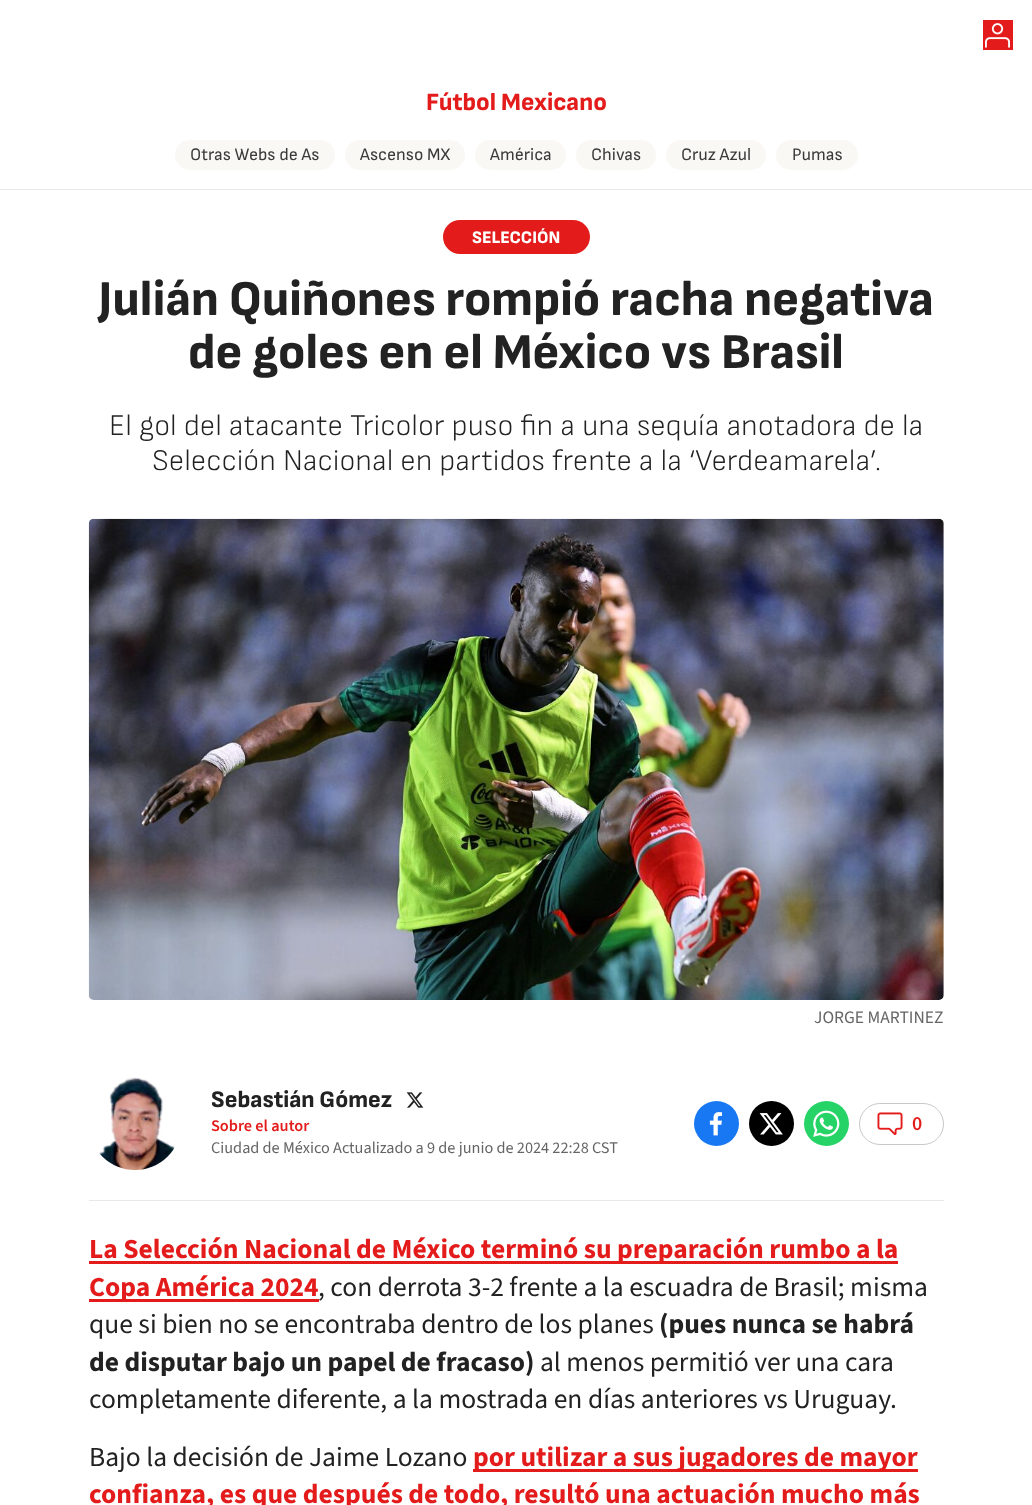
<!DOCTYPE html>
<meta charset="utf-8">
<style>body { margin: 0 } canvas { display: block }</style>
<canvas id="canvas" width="1032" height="1505"></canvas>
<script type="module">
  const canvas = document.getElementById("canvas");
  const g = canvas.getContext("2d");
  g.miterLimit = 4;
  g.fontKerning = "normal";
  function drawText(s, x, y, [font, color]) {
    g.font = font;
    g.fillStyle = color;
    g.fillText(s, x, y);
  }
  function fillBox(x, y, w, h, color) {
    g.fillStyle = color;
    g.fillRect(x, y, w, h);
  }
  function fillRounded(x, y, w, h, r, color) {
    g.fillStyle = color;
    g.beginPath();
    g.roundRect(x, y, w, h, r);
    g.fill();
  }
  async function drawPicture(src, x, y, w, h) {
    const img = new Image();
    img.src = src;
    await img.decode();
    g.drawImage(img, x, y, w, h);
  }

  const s1 = ["800 25px Sofia Sans", "#E41B1B"];
  const s2 = ["17.5px Sofia Sans", "#3A3A3A"];
  const s3 = ["800 17.5px Sofia Sans", "#FFFFFF"];
  const s4 = ["800 50px Sofia Sans", "#222222"];
  const s5 = ["300 30px Sofia Sans", "#222222"];
  const s6 = ["200 17.5px 'Source Sans 3'", "#656565"];
  const s7 = ["800 23.75px Sofia Sans", "#222222"];
  const s8 = ["200 16.25px 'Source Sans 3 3'", "#E41B1B"];
  const s9 = ["200 16.25px 'Source Sans 3'", "#656565"];
  const s10 = ["200 20px 'Source Sans 3 3'", "#E41B1B"];
  const s11 = ["200 27.5px 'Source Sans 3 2'", "#E41B1B"];
  const s12 = ["200 27.5px 'Source Sans 3'", "#222222"];
  const s13 = ["200 27.5px 'Source Sans 3 2'", "#222222"];

  fillBox(0, 0, 1032, 1505, "#FFFFFF");
  fillBox(983, 20, 30, 30, "#E41B1B");
  await drawPicture("pic1.png", 985, 23, 25, 25);
  drawText("Fútbol Mexicano", 426, 110, s1);
  fillRounded(175, 140, 160, 30, 15, "#FAF8F4");
  drawText("Otras Webs de As", 190, 160, s2);
  fillRounded(345, 140, 120, 30, 15, "#FAF8F4");
  drawText("Ascenso MX", 360, 160, s2);
  fillRounded(475, 140, 91, 30, 15, "#FAF8F4");
  drawText("América", 490, 160, s2);
  fillRounded(576, 140, 80, 30, 15, "#FAF8F4");
  drawText("Chivas", 591, 160, s2);
  fillRounded(666, 140, 100, 30, 15, "#FAF8F4");
  drawText("Cruz Azul", 681, 160, s2);
  fillRounded(776, 140, 82, 30, 15, "#FAF8F4");
  drawText("Pumas", 792, 160, s2);
  fillBox(0, 189, 1032, 1, "#E9E9E9");
  fillRounded(443, 220, 147, 34, 17, "#E41B1B");
  drawText("SELECCIÓN", 472, 243, s3);
  drawText("Julián Quiñones rompió racha negativa", 98, 315, s4);
  drawText("de goles en el México vs Brasil", 188, 368, s4);
  drawText("El gol del atacante Tricolor puso fin a una sequía anotadora de la", 109, 435, s5);
  drawText("Selección Nacional en partidos frente a la ‘Verdeamarela’.", 152, 470, s5);
  await drawPicture("pic2.png", 88, 518, 856, 482);
  drawText("JORGE MARTINEZ", 814, 1023, s6);
  fillBox(89, 1200, 855, 1, "#E9E9E9");
  await drawPicture("pic3.png", 99, 1077, 76, 93);
  drawText("Sebastián Gómez", 211, 1107, s7);
  await drawPicture("pic4.png", 406, 1092, 18, 16);
  drawText("Sobre el autor", 211, 1131, s8);
  drawText("Ciudad de México Actualizado a 9 de junio de 2024 22:28 CST", 211, 1153, s9);
  g.fillStyle = "#1877F2";
  g.beginPath();
  g.arc(716.5, 1123.5, 22.5, 0, Math.PI * 2);
  g.fill();
  await drawPicture("pic5.png", 709, 1112, 14, 24);
  g.fillStyle = "#000000";
  g.beginPath();
  g.arc(771.5, 1123.5, 22.5, 0, Math.PI * 2);
  g.fill();
  await drawPicture("pic6.png", 759, 1113, 24, 22);
  g.fillStyle = "#25D366";
  g.beginPath();
  g.arc(826.5, 1123.5, 22.5, 0, Math.PI * 2);
  g.fill();
  await drawPicture("pic7.png", 813, 1110, 27, 27);
  g.beginPath();
  g.roundRect(859.5, 1103.5, 84, 41, 20.5);
  g.strokeStyle = "#C9C9C9";
  g.stroke();
  await drawPicture("pic8.png", 877, 1112, 26, 23);
  drawText("0", 912, 1130, s10);
  fillBox(89, 1261, 809, 3, "#E41B1B");
  drawText("La Selección Nacional de México terminó su preparación rumbo a la", 89, 1258, s11);
  fillBox(89, 1299, 230, 3, "#E41B1B");
  drawText("Copa América 2024", 89, 1296, s11);
  drawText(", con derrota 3-2 frente a la escuadra de Brasil; misma", 318, 1296, s12);
  drawText("que si bien no se encontraba dentro de los planes", 89, 1333, s12);
  drawText("(pues nunca se habrá", 659, 1333, s13);
  drawText("de disputar bajo un papel de fracaso)", 89, 1371, s13);
  drawText("al menos permitió ver una cara", 540, 1371, s12);
  drawText("completamente diferente, a la mostrada en días anteriores vs Uruguay.", 89, 1408, s12);
  drawText("Bajo la decisión de Jaime Lozano", 89, 1466, s12);
  fillBox(473, 1469, 445, 3, "#E41B1B");
  drawText("por utilizar a sus jugadores de mayor", 473, 1466, s11);
  drawText("confianza, es que después de todo, resultó una actuación mucho más", 89, 1503, s11);
</script>
